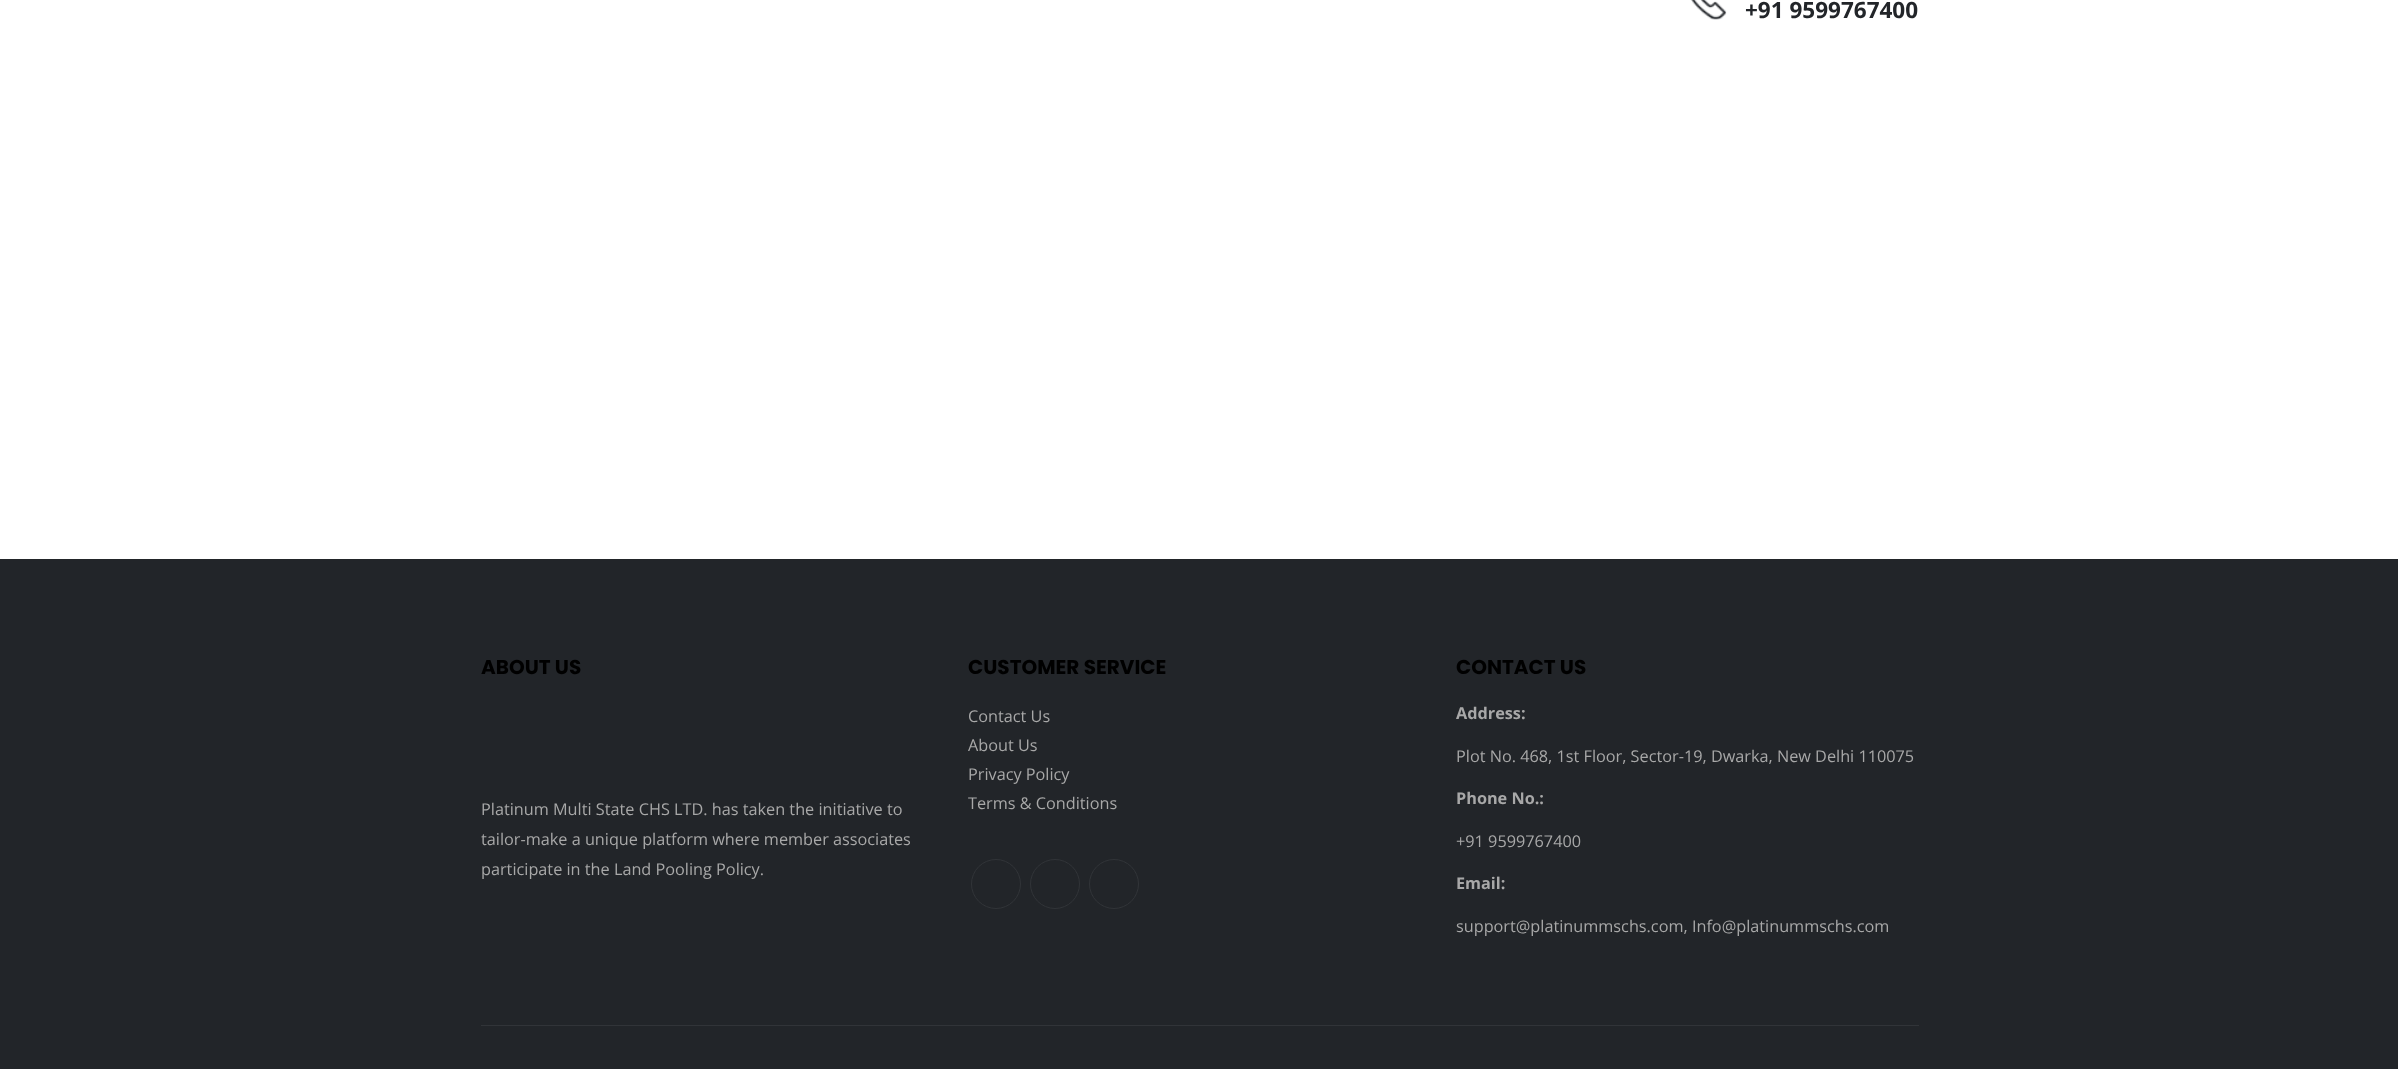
<!DOCTYPE html>
<meta charset="utf-8">
<style>body { margin: 0 } canvas { display: block }</style>
<canvas id="canvas" width="2398" height="1069"></canvas>
<script type="module">
  const canvas = document.getElementById("canvas");
  const g = canvas.getContext("2d");
  g.miterLimit = 4;
  g.fontKerning = "normal";
  function drawText(s, x, y, [font, color]) {
    g.font = font;
    g.fillStyle = color;
    g.fillText(s, x, y);
  }
  function fillBox(x, y, w, h, color) {
    g.fillStyle = color;
    g.fillRect(x, y, w, h);
  }
  async function drawPicture(src, x, y, w, h) {
    const img = new Image();
    img.src = src;
    await img.decode();
    g.drawImage(img, x, y, w, h);
  }

  const s1 = ["bold 22.5px Open Sans", "#222529"];
  const s2 = ["bold 20px Poppins", "#000000"];
  const s3 = ["16.25px Open Sans", "#A8A8A8"];
  const s4 = ["bold 16.25px Open Sans", "#A8A8A8"];

  fillBox(0, 0, 2398, 1069, "#FFFFFF");
  await drawPicture("pic1.png", 1691, 0, 36, 20);
  drawText("+91 9599767400", 1745, 18, s1);
  fillBox(0, 559, 2398, 510, "#222529");
  drawText("ABOUT US", 481, 674, s2);
  drawText("Platinum Multi State CHS LTD. has taken the initiative to", 481, 815, s3);
  drawText("tailor-make a unique platform where member associates", 481, 845, s3);
  drawText("participate in the Land Pooling Policy.", 481, 875, s3);
  drawText("CUSTOMER SERVICE", 968, 674, s2);
  drawText("Contact Us", 968, 722, s3);
  drawText("About Us", 968, 751, s3);
  drawText("Privacy Policy", 968, 780, s3);
  drawText("Terms & Conditions", 968, 809, s3);
  g.beginPath();
  g.arc(996, 884, 24.5, 0, Math.PI * 2);
  g.strokeStyle = "#313438";
  g.stroke();
  g.beginPath();
  g.arc(1055, 884, 24.5, 0, Math.PI * 2);
  g.stroke();
  g.beginPath();
  g.arc(1114, 884, 24.5, 0, Math.PI * 2);
  g.stroke();
  drawText("CONTACT US", 1456, 674, s2);
  drawText("Address:", 1456, 719, s4);
  drawText("Plot No. 468, 1st Floor, Sector-19, Dwarka, New Delhi 110075", 1456, 762, s3);
  drawText("Phone No.:", 1456, 804, s4);
  drawText("+91 9599767400", 1456, 847, s3);
  drawText("Email:", 1456, 889, s4);
  drawText("support@platinummschs.com, Info@platinummschs.com", 1456, 932, s3);
  fillBox(481, 1025, 1438, 1, "#313438");
</script>
